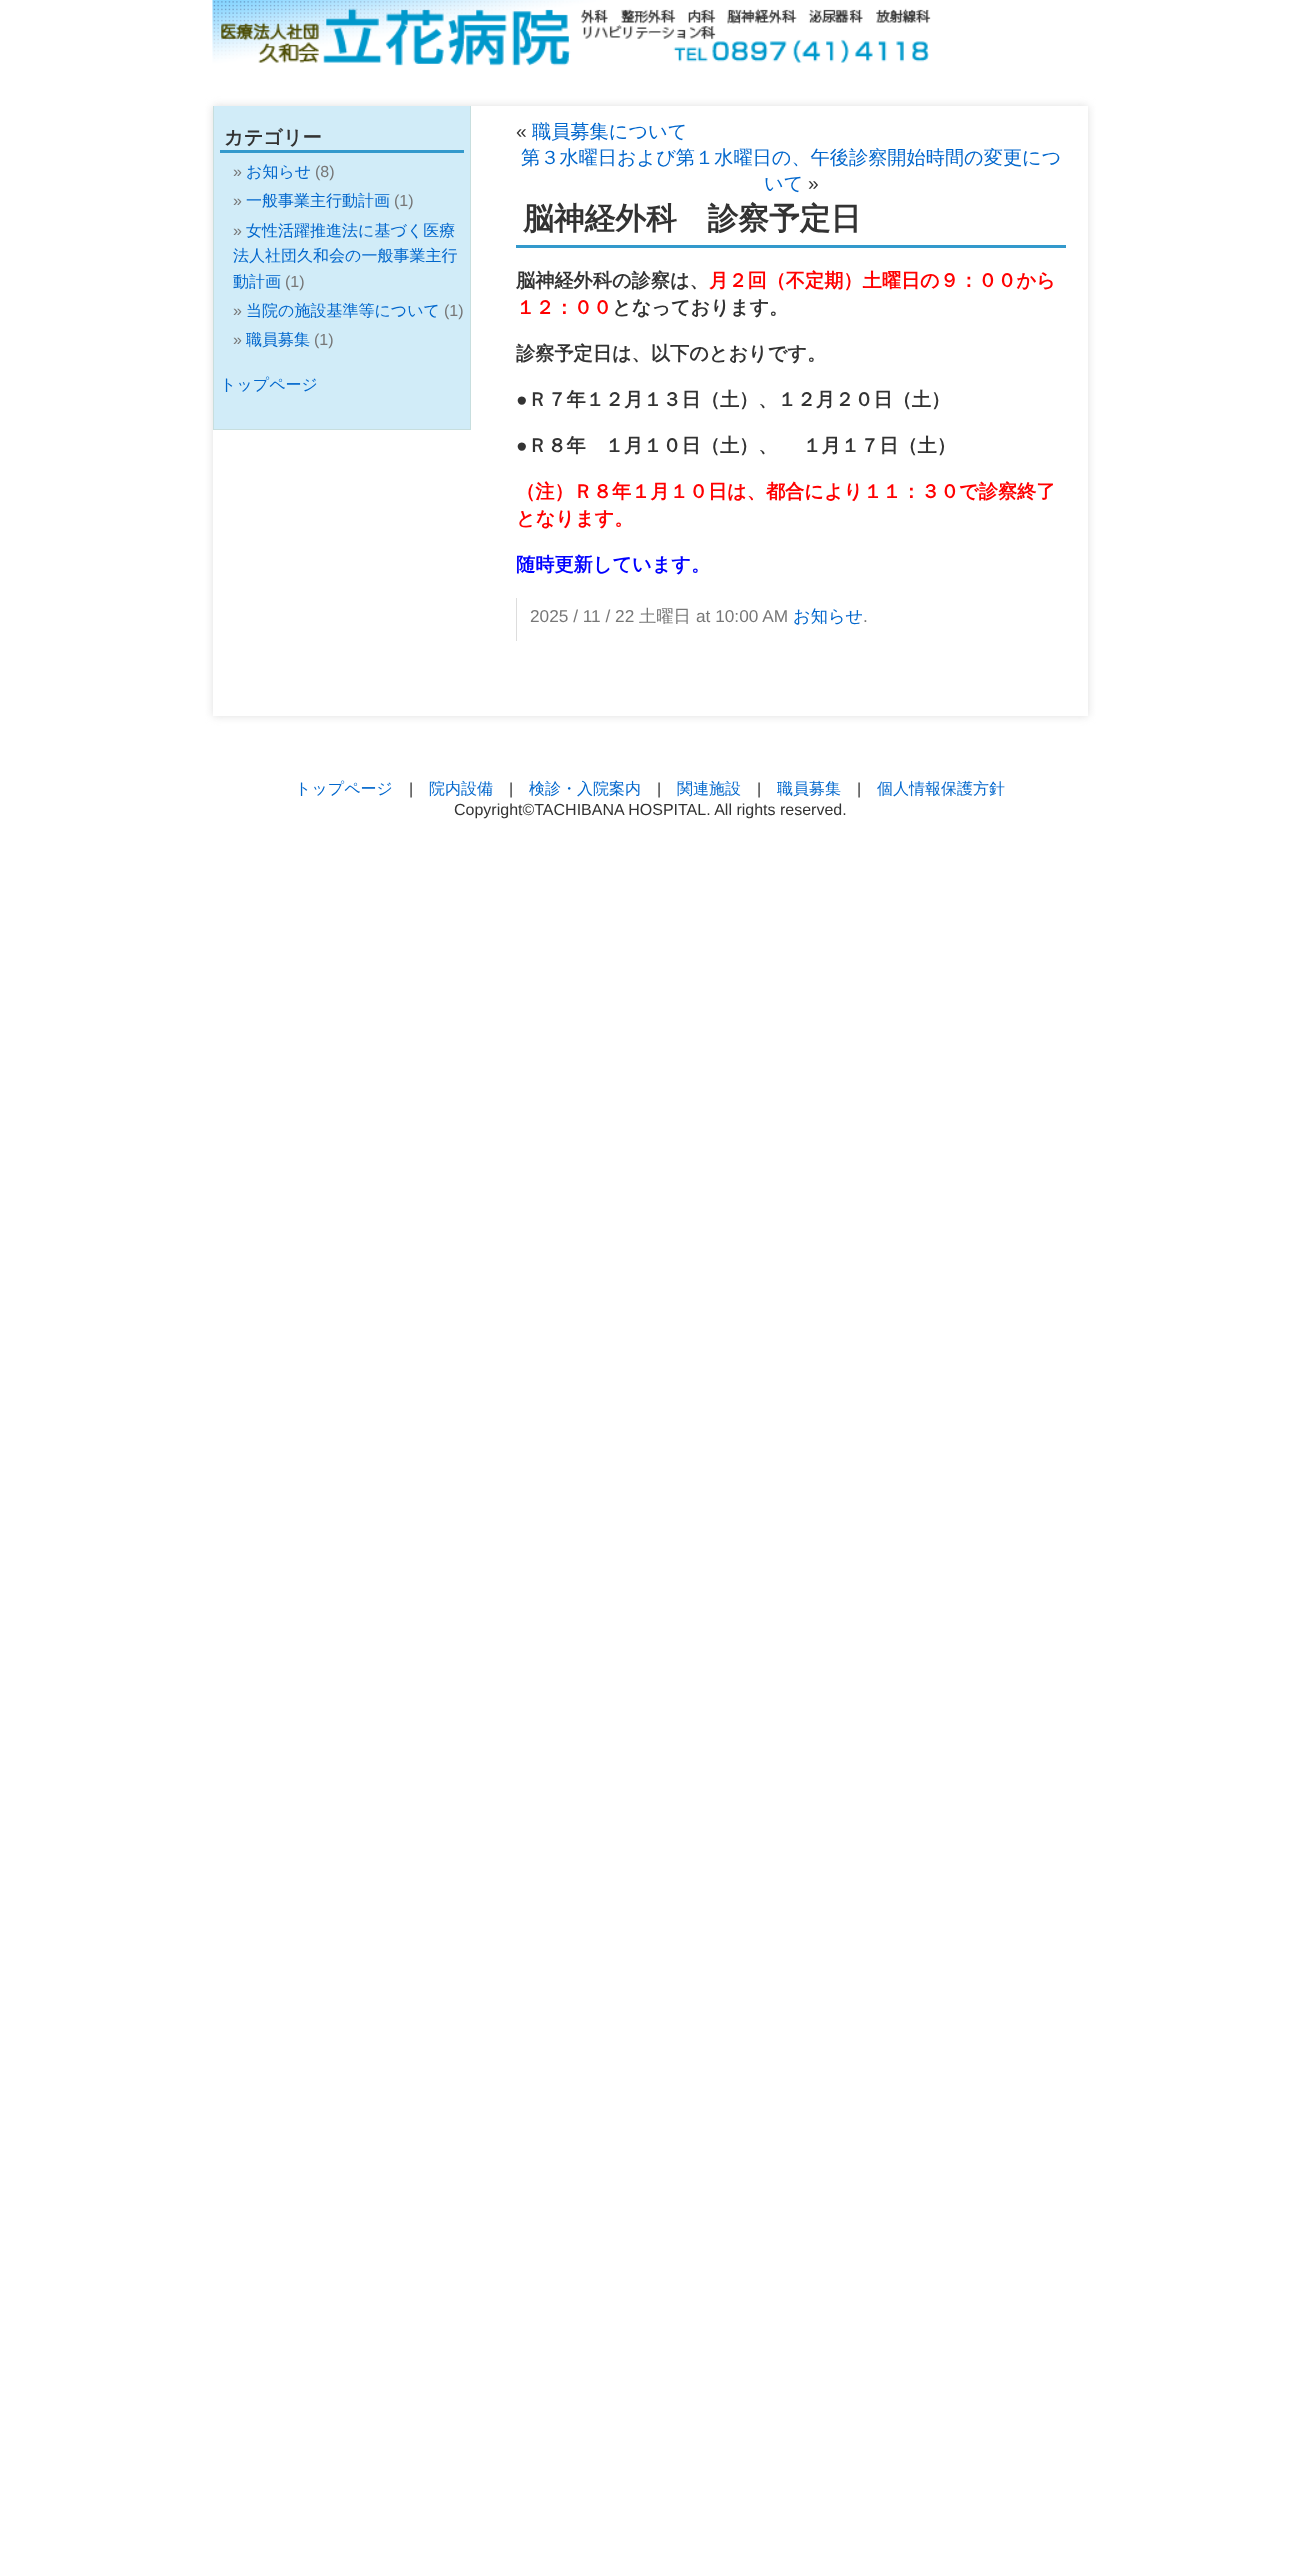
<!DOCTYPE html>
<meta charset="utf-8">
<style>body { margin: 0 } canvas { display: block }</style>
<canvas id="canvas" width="1300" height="2570"></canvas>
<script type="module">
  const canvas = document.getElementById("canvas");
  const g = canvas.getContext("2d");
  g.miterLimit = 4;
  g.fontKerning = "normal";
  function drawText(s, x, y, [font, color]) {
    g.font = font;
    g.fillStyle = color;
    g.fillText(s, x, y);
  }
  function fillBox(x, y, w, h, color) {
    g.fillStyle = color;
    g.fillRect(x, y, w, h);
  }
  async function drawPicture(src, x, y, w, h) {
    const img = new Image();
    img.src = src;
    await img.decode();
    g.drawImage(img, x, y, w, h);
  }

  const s1 = ["bold 19.2px WenQuanYi Zen Hei", "#333333"];
  const s2 = ["16px Liberation Sans", "#777777"];
  const s3 = ["500 16px WenQuanYi Zen Hei", "#0066CC"];
  const s4 = ["19.2px Liberation Sans", "#333333"];
  const s5 = ["500 19.2px WenQuanYi Zen Hei", "#0066CC"];
  const s6 = ["bold 30.75px WenQuanYi Zen Hei", "#333333"];
  const s7 = ["bold 19.2px WenQuanYi Zen Hei", "#FF0000"];
  const s8 = ["bold 19.2px Liberation Sans", "#333333"];
  const s9 = ["bold 19.2px WenQuanYi Zen Hei", "#0000FF"];
  const s10 = ["17.25px Liberation Sans", "#777777"];
  const s11 = ["500 17.25px WenQuanYi Zen Hei", "#777777"];
  const s12 = ["500 17.25px WenQuanYi Zen Hei", "#0066CC"];
  const s13 = ["16px Liberation Sans", "#333333"];

  fillBox(0, 0, 1300, 2570, "#FFFFFF");
  await drawPicture("pic1.png", 212, 0, 719, 66);
  g.save();
  g.beginPath();
  g.moveTo(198, 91);
  g.lineTo(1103, 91);
  g.lineTo(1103, 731);
  g.lineTo(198, 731);
  g.closePath();
  g.moveTo(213, 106);
  g.lineTo(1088, 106);
  g.lineTo(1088, 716);
  g.lineTo(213, 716);
  g.closePath();
  g.clip("evenodd");
  g.fillStyle = "#DDDDDD";
  g.filter = "blur(4.5px)";
  g.beginPath();
  g.rect(213, 106, 875, 610);
  g.fill();
  g.filter = "none";
  g.restore();
  fillBox(214, 106, 256, 323, "#D1ECF8");
  fillBox(470, 106, 1, 324, "#C7DEDE");
  fillBox(213, 429, 258, 1, "#C7DEDE");
  fillBox(213, 106, 1, 324, "#C7DEDE");
  fillBox(220, 150, 244, 3, "#3399CC");
  drawText("カテゴリー", 224, 144, s1);
  drawText("»", 233, 177, s2);
  drawText("お知らせ", 246, 177, s3);
  drawText("(8)", 315, 177, s2);
  drawText("»", 233, 206, s2);
  drawText("一般事業主行動計画", 246, 206, s3);
  drawText("(1)", 394, 206, s2);
  drawText("»", 233, 236, s2);
  drawText("女性活躍推進法に基づく医療", 246, 236, s3);
  drawText("法人社団久和会の一般事業主行", 233, 261, s3);
  drawText("動計画", 233, 287, s3);
  drawText("(1)", 285, 287, s2);
  drawText("»", 233, 316, s2);
  drawText("当院の施設基準等について", 246, 316, s3);
  drawText("(1)", 444, 316, s2);
  drawText("»", 233, 345, s2);
  drawText("職員募集", 246, 345, s3);
  drawText("(1)", 314, 345, s2);
  drawText("トップページ", 220, 390, s3);
  fillBox(516, 106, 572, 610, "#FFFFFF");
  drawText("«", 516, 138, s4);
  drawText("職員募集について", 532, 138, s5);
  drawText("第３水曜日および第１水曜日の、午後診察開始時間の変更につ", 521, 164, s5);
  drawText("いて", 764, 190, s5);
  drawText("»", 808, 190, s4);
  fillBox(516, 245, 550, 3, "#3399CC");
  drawText("脳神経外科　診察予定日", 523, 229, s6);
  drawText("脳神経外科の診察は、", 516, 287, s1);
  drawText("月２回（不定期）土曜日の９：００から", 709, 287, s7);
  drawText("１２：００", 516, 314, s7);
  drawText("となっております。", 612, 314, s1);
  drawText("診察予定日は、以下のとおりです。", 516, 360, s1);
  drawText("●", 516, 406, s8);
  drawText("Ｒ７年１２月１３日（土）、１２月２０日（土）", 528, 406, s1);
  drawText("●", 516, 452, s8);
  drawText("Ｒ８年　１月１０日（土）、　 １月１７日（土）", 528, 452, s1);
  drawText("（注）Ｒ８年１月１０日は、都合により１１：３０で診察終了", 516, 498, s7);
  drawText("となります。", 516, 525, s7);
  drawText("随時更新しています。", 516, 571, s9);
  fillBox(516, 598, 1, 43, "#DDDDDD");
  drawText("2025 / 11 / 22", 530, 622, s10);
  drawText("土曜日", 639, 622, s11);
  drawText("at 10:00 AM", 696, 622, s10);
  drawText("お知らせ", 793, 622, s12);
  drawText(".", 863, 622, s10);
  drawText("トップページ", 295, 794, s3);
  drawText("|", 409, 794, s13);
  drawText("院内設備", 429, 794, s3);
  drawText("|", 509, 794, s13);
  drawText("検診・入院案内", 529, 794, s3);
  drawText("|", 657, 794, s13);
  drawText("関連施設", 677, 794, s3);
  drawText("|", 757, 794, s13);
  drawText("職員募集", 777, 794, s3);
  drawText("|", 857, 794, s13);
  drawText("個人情報保護方針", 877, 794, s3);
  drawText("Copyright©TACHIBANA HOSPITAL. All rights reserved.", 454, 815, s13);
</script>
